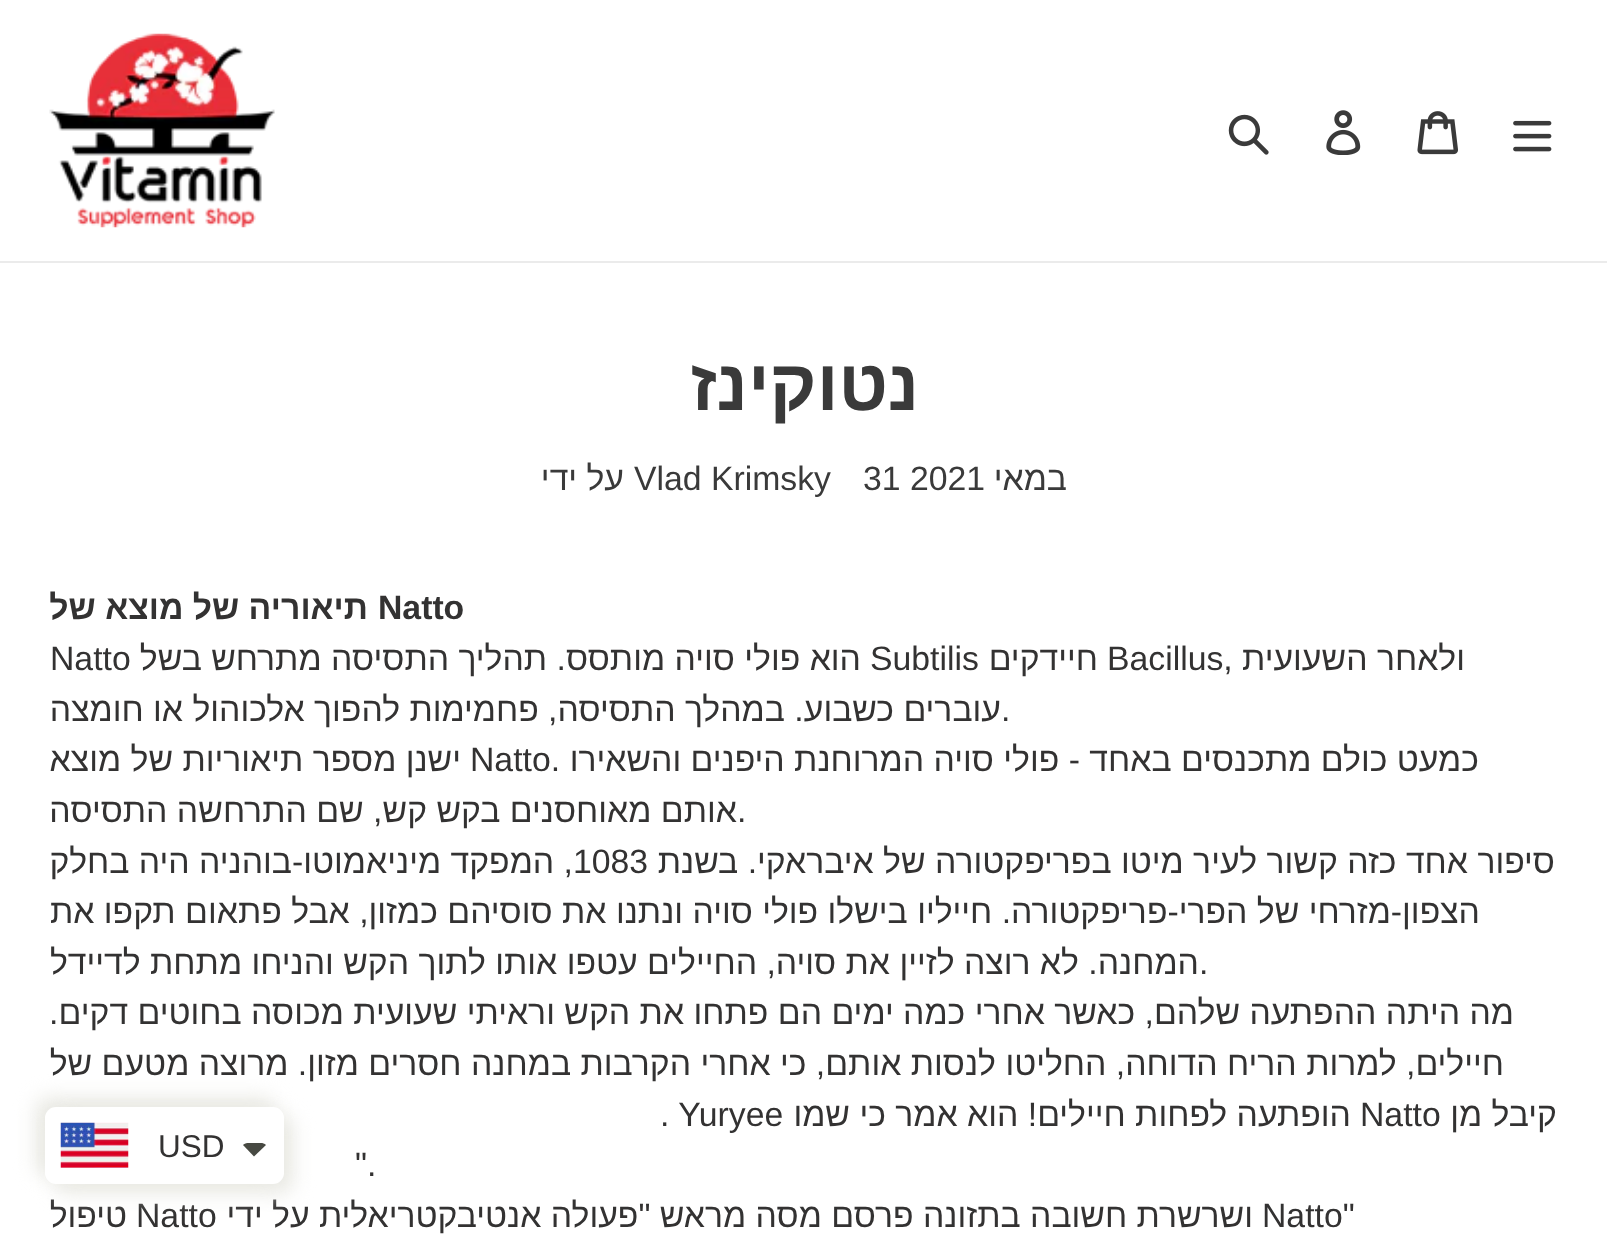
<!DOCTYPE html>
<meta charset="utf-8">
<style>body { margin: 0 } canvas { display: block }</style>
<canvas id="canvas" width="1607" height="1234"></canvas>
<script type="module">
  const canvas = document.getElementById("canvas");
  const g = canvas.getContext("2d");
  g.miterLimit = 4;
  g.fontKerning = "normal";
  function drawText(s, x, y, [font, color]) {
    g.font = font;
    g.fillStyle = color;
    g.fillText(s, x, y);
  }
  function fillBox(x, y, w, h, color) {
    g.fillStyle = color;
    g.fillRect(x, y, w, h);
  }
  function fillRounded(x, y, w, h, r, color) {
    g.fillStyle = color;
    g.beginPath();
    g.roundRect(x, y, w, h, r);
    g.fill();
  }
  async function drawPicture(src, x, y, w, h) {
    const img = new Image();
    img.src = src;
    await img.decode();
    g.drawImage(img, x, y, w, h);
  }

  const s1 = ["bold 72px Liberation Sans", "#3A3A3A"];
  const s2 = ["33.75px Liberation Sans", "#3A3A3A"];
  const s3 = ["bold 33.75px Liberation Sans", "#333232"];
  const s4 = ["33.75px Liberation Sans", "#333232"];
  const s5 = ["31.5px Liberation Sans", "#333232"];

  fillBox(0, 0, 1607, 1234, "#FFFFFF");
  fillBox(0, 261, 1607, 2, "#EBEBEB");
  await drawPicture("pic1.png", 1513, 120, 39, 32);
  await drawPicture("pic2.png", 1417, 111, 41, 44);
  await drawPicture("pic3.png", 1326, 110, 35, 45);
  await drawPicture("pic4.png", 1228, 114, 41, 41);
  await drawPicture("pic5.png", 49, 33, 226, 195);
  g.direction = "rtl";
  drawText("נטוקינז", 919, 410, s1);
  drawText("במאי", 1067, 490, s2);
  g.direction = "ltr";
  drawText("31 2021", 863, 490, s2);
  drawText("Vlad Krimsky", 634, 490, s2);
  g.direction = "rtl";
  drawText("על ידי", 624, 490, s2);
  g.direction = "ltr";
  drawText("Natto", 378, 619, s3);
  g.direction = "rtl";
  drawText("תיאוריה של מוצא של", 368, 619, s3);
  drawText("ולאחר השעועית", 1465, 670, s4);
  g.direction = "ltr";
  drawText("Bacillus,", 1107, 670, s4);
  g.direction = "rtl";
  drawText("חיידקים", 1098, 670, s4);
  g.direction = "ltr";
  drawText("Subtilis", 870, 670, s4);
  g.direction = "rtl";
  drawText("הוא פולי סויה מותסס. תהליך התסיסה מתרחש בשל", 861, 670, s4);
  g.direction = "ltr";
  drawText("Natto", 50, 670, s4);
  drawText(".", 1001, 721, s4);
  g.direction = "rtl";
  drawText("עוברים כשבוע. במהלך התסיסה, פחמימות להפוך אלכוהול או חומצה", 1001, 721, s4);
  drawText("כמעט כולם מתכנסים באחד - פולי סויה המרוחנת היפנים והשאירו", 1479, 771, s4);
  g.direction = "ltr";
  drawText("Natto.", 470, 771, s4);
  g.direction = "rtl";
  drawText("ישנן מספר תיאוריות של מוצא", 461, 771, s4);
  g.direction = "ltr";
  drawText(".", 737, 822, s4);
  g.direction = "rtl";
  drawText("אותם מאוחסנים בקש קש, שם התרחשה התסיסה", 737, 822, s4);
  drawText("סיפור אחד כזה קשור לעיר מיטו בפריפקטורה של איבראקי. בשנת", 1555, 873, s4);
  g.direction = "ltr";
  drawText("1083", 573, 873, s4);
  g.direction = "rtl";
  drawText(", המפקד מיניאמוטו-בוהניה היה בחלק", 573, 873, s4);
  drawText("הצפון-מזרחי של הפרי-פריפקטורה. חייליו בישלו פולי סויה ונתנו את סוסיהם כמזון, אבל פתאום תקפו את", 1480, 923, s4);
  g.direction = "ltr";
  drawText(".", 1199, 974, s4);
  g.direction = "rtl";
  drawText("המחנה. לא רוצה לזיין את סויה, החיילים עטפו אותו לתוך הקש והניחו מתחת לדיידל", 1199, 974, s4);
  drawText("מה היתה ההפתעה שלהם, כאשר אחרי כמה ימים הם פתחו את הקש וראיתי שעועית מכוסה בחוטים דקים.", 1514, 1024, s4);
  drawText("חיילים, למרות הריח הדוחה, החליטו לנסות אותם, כי אחרי הקרבות במחנה חסרים מזון. מרוצה מטעם של", 1504, 1075, s4);
  drawText("קיבל מן", 1557, 1126, s4);
  g.direction = "ltr";
  drawText("Natto", 1360, 1126, s4);
  g.direction = "rtl";
  drawText("הופתעה לפחות חיילים! הוא אמר כי שמו", 1351, 1126, s4);
  g.direction = "ltr";
  drawText(". Yuryee", 660, 1126, s4);
  drawText("\".", 355, 1176, s4);
  drawText("Natto\"", 1262, 1227, s4);
  g.direction = "rtl";
  drawText("ושרשרת חשובה בתזונה פרסם מסה מראש \"פעולה אנטיבקטריאלית על ידי", 1253, 1227, s4);
  g.direction = "ltr";
  drawText("Natto", 136, 1227, s4);
  g.direction = "rtl";
  drawText("טיפול", 127, 1227, s4);
  g.fillStyle = "#E8E8E2";
  g.filter = "blur(10px)";
  g.beginPath();
  g.roundRect(36, 1098, 239, 77, 11);
  g.fill();
  g.filter = "none";
  g.filter = "blur(10px)";
  g.beginPath();
  g.roundRect(54, 1116, 239, 77, 11);
  g.fill();
  g.filter = "none";
  fillRounded(45, 1107, 239, 77, 11, "#FFFFFF");
  g.fillStyle = "#474942";
  g.beginPath();
  g.moveTo(247.5, 1143);
  g.lineTo(261, 1143);
  g.bezierCurveTo(262.5, 1143, 264.5, 1143.5, 266, 1145);
  g.lineTo(254, 1156.5);
  g.lineTo(243, 1145);
  g.bezierCurveTo(244, 1144, 245.5, 1143, 247.5, 1143);
  g.closePath();
  g.fill();
  g.direction = "ltr";
  drawText("USD", 158, 1157, s5);
  await drawPicture("pic6.png", 60, 1122, 69, 46);
</script>
